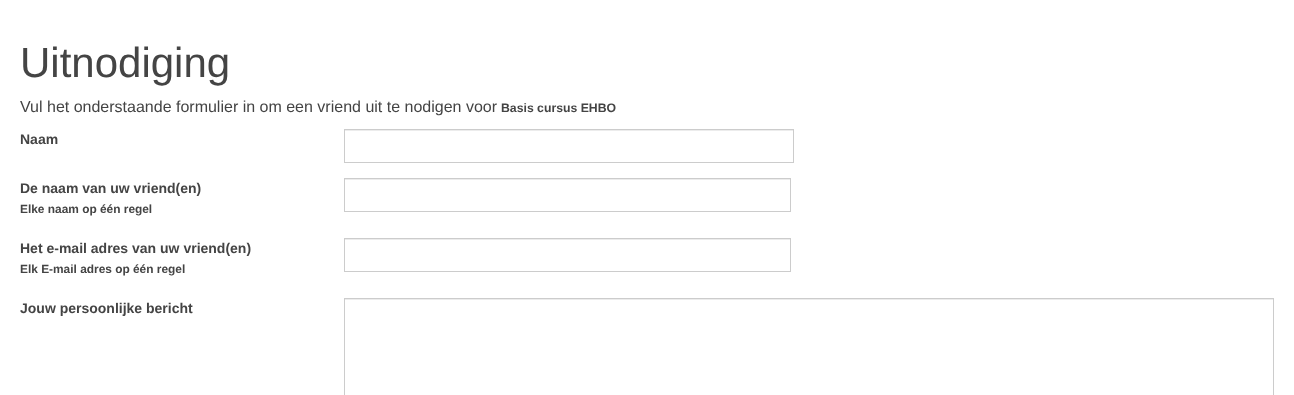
<!DOCTYPE html>
<meta charset="utf-8">
<style>body { margin: 0 } canvas { display: block }</style>
<canvas id="canvas" width="1294" height="395"></canvas>
<script type="module">
  const canvas = document.getElementById("canvas");
  const g = canvas.getContext("2d");
  g.miterLimit = 4;
  g.fontKerning = "normal";
  function drawText(s, x, y, [font, color]) {
    g.font = font;
    g.fillStyle = color;
    g.fillText(s, x, y);
  }
  function fillBox(x, y, w, h, color) {
    g.fillStyle = color;
    g.fillRect(x, y, w, h);
  }

  const s1 = ["42px Liberation Sans", "#444444"];
  const s2 = ["16px Liberation Sans", "#444444"];
  const s3 = ["bold 12.25px Liberation Sans", "#444444"];
  const s4 = ["bold 14px Liberation Sans", "#444444"];
  const s5 = ["bold 11.9px Liberation Sans", "#444444"];

  fillBox(0, 0, 1294, 395, "#FFFFFF");
  drawText("Uitnodiging", 20, 77, s1);
  drawText("Vul het onderstaande formulier in om een vriend uit te nodigen voor", 20, 112, s2);
  drawText("Basis cursus EHBO", 501, 112, s3);
  drawText("Naam", 20, 144, s4);
  fillBox(345, 130, 448, 1, "#ECECEC");
  g.strokeStyle = "#CCCCCC";
  g.strokeRect(344.5, 129.5, 449, 33);
  drawText("De naam van uw vriend(en)", 20, 193, s4);
  drawText("Elke naam op één regel", 20, 213, s5);
  fillBox(345, 179, 445, 1, "#ECECEC");
  g.strokeRect(344.5, 178.5, 446, 33);
  drawText("Het e-mail adres van uw vriend(en)", 20, 253, s4);
  drawText("Elk E-mail adres op één regel", 20, 273, s5);
  fillBox(345, 239, 445, 1, "#ECECEC");
  g.strokeRect(344.5, 238.5, 446, 33);
  drawText("Jouw persoonlijke bericht", 20, 313, s4);
  fillBox(345, 299, 928, 1, "#ECECEC");
  g.strokeRect(344.5, 298.5, 929, 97);
</script>
